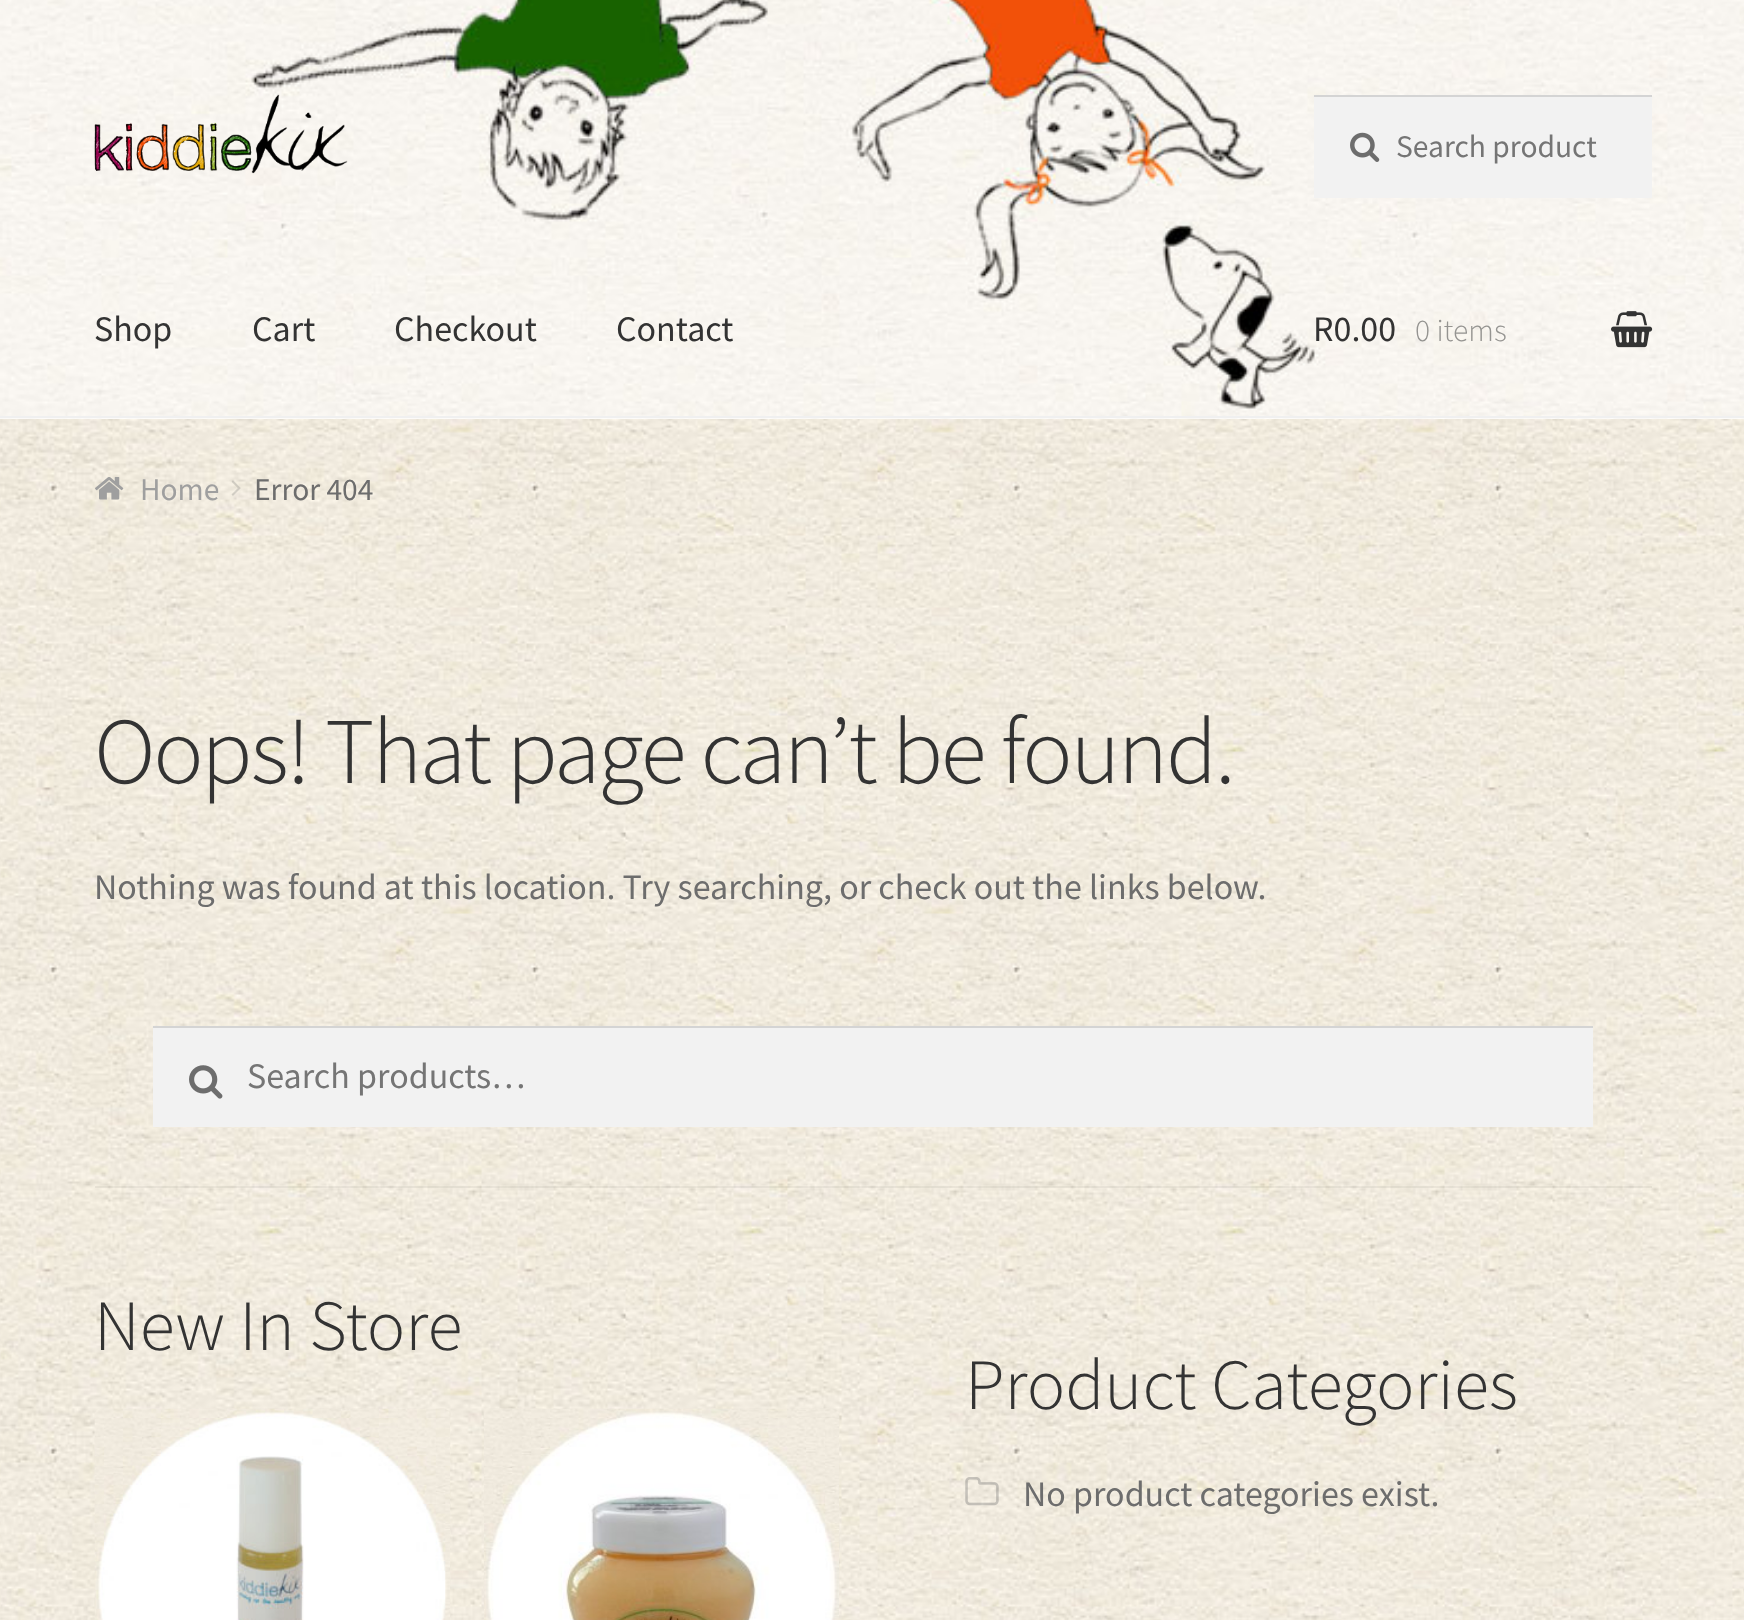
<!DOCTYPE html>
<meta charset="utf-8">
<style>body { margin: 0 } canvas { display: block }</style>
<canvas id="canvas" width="1744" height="1620"></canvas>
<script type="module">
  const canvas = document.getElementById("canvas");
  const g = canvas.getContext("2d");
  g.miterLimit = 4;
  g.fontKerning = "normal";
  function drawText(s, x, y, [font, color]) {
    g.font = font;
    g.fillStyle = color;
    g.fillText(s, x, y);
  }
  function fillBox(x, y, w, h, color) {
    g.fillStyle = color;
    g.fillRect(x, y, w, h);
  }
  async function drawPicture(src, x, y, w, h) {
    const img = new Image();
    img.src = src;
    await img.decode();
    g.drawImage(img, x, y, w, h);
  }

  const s1 = ["31.5px Source Sans Pro", "#757575"];
  const s2 = ["36px Source Sans Pro", "#333333"];
  const s3 = ["300 31.5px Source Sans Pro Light", "#959491"];
  const s4 = ["31.5px Source Sans Pro", "#9F9F9F"];
  const s5 = ["31.5px Source Sans Pro", "#6D6D6D"];
  const s6 = ["300 94.25px Source Sans Pro Light", "#333333"];
  const s7 = ["36px Source Sans Pro", "#6D6D6D"];
  const s8 = ["36px Source Sans Pro", "#757575"];
  const s9 = ["300 72px Source Sans Pro Light", "#333333"];

  fillBox(0, 0, 1744, 1620, "#FFFFFF");
  await drawPicture("pic1.png", 0, 419, 1744, 1201);
  await drawPicture("pic2.png", 0, 0, 1744, 419);
  fillBox(0, 416, 1744, 2, "#F0F0F0");
  await drawPicture("pic3.png", 94, 94, 254, 80);
  fillBox(1314, 97, 338, 101, "#F2F2F2");
  await drawPicture("pic4.png", 1350, 132, 30, 30);
  fillBox(1314, 95, 338, 2, "#D4D4D4");
  drawText("Search product", 1396, 157, s1);
  drawText("Shop", 94, 341, s2);
  drawText("Cart", 252, 341, s2);
  drawText("Checkout", 394, 341, s2);
  drawText("Contact", 616, 341, s2);
  drawText("R0.00", 1313, 341, s2);
  drawText("0 items", 1415, 341, s3);
  await drawPicture("pic5.png", 1611, 311, 42, 37);
  await drawPicture("pic6.png", 95, 477, 29, 23);
  drawText("Home", 140, 500, s4);
  await drawPicture("pic7.png", 231, 480, 10, 16);
  drawText("Error 404", 254, 500, s5);
  g.letterSpacing = "-2.25px";
  drawText("Oops! That page can’t be found.", 94, 783, s6);
  g.letterSpacing = "0px";
  drawText("Nothing was found at this location. Try searching, or check out the links below.", 94, 899, s7);
  fillBox(153, 1028, 1440, 99, "#F2F2F2");
  await drawPicture("pic8.png", 189, 1065, 34, 34);
  fillBox(153, 1026, 1440, 2, "#D4D4D4");
  drawText("Search products…", 247, 1088, s8);
  fillBox(95, 1186, 1557, 2, "rgba(0, 0, 0, 0.05)");
  drawText("New In Store", 94, 1350, s9);
  await drawPicture("pic9.png", 94, 1408, 356, 212);
  await drawPicture("pic10.png", 484, 1408, 355, 212);
  drawText("Product Categories", 965, 1409, s9);
  await drawPicture("pic11.png", 965, 1477, 34, 29);
  drawText("No product categories exist.", 1023, 1506, s7);
</script>
